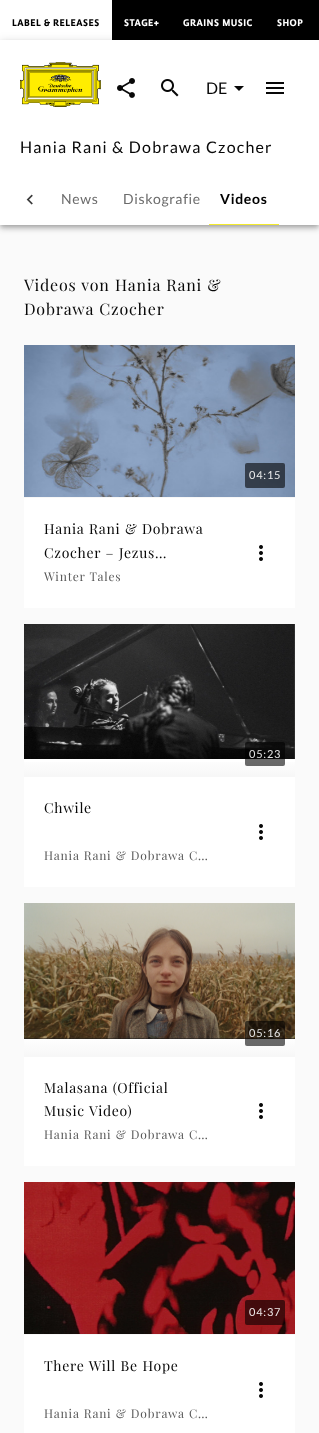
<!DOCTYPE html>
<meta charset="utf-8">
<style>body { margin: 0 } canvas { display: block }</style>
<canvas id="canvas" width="319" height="1433"></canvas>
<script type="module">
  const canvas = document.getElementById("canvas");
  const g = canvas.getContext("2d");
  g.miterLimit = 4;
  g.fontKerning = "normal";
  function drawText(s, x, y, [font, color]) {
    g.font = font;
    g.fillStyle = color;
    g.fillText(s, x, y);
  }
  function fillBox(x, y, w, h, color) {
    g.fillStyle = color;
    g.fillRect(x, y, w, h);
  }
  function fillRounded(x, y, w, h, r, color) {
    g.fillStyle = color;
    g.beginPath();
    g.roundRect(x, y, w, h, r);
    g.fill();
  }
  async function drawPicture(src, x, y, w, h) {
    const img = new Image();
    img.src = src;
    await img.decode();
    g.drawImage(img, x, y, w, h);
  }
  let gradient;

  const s1 = ["bold 10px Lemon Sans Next", "#000000"];
  const s2 = ["bold 10px Lemon Sans Next", "#FFFFFF"];
  const s3 = ["16px Lato", "#080808"];
  const s4 = ["14px Lato", "#6B6B6B"];
  const s5 = ["bold 14px Lato", "#000000"];
  const s6 = ["16px Playfair Display", "#080808"];
  const s7 = ["11px Lato", "#EBECED"];
  const s8 = ["14px Playfair Display", "#080808"];
  const s9 = ["12px Playfair Display", "#595959"];
  const s10 = ["11px Lato", "#E6E6E6"];
  const s11 = ["11px Lato", "#ECE7E7"];

  fillBox(0, 0, 319, 1433, "#FAFAFA");
  fillBox(112, 0, 207, 40, "#000000");
  fillBox(0, 0, 112, 40, "#FFFFFF");
  g.letterSpacing = "0.5px";
  drawText("LABEL & RELEASES", 12, 26, s1);
  drawText("STAGE+", 124, 26, s2);
  drawText("GRAINS MUSIC", 183, 26, s2);
  drawText("SHOP", 277, 26, s2);
  g.fillStyle = "rgba(0, 0, 0, 0.12)";
  g.filter = "blur(5px)";
  g.beginPath();
  g.rect(0, 41, 319, 185);
  g.fill();
  g.filter = "none";
  g.fillStyle = "rgba(0, 0, 0, 0.14)";
  g.filter = "blur(2.5px)";
  g.beginPath();
  g.rect(0, 44, 319, 185);
  g.fill();
  g.filter = "none";
  g.fillStyle = "rgba(0, 0, 0, 0.2)";
  g.filter = "blur(2px)";
  g.beginPath();
  g.rect(1, 43, 317, 183);
  g.fill();
  g.filter = "none";
  fillBox(0, 40, 319, 185, "#FFFFFF");
  await drawPicture("pic1.png", 20, 62, 81, 45);
  await drawPicture("pic2.png", 117, 78, 18, 20);
  await drawPicture("pic3.png", 161, 79, 18, 18);
  g.letterSpacing = "0px";
  drawText("DE", 206, 94, s3);
  g.beginPath();
  g.moveTo(234, 86);
  g.lineTo(239, 91);
  g.lineTo(244, 86);
  g.closePath();
  g.fill();
  await drawPicture("pic4.png", 266, 82, 18, 12);
  g.letterSpacing = "1.2px";
  drawText("Hania Rani & Dobrawa Czocher", 20, 153, s3);
  await drawPicture("pic5.png", 26, 194, 7, 11);
  g.letterSpacing = "0.7px";
  drawText("News", 61, 204, s4);
  drawText("Diskografie", 123, 204, s4);
  drawText("Videos", 220, 204, s5);
  fillBox(209, 224, 70, 1, "#F3EA2C");
  g.letterSpacing = "0.8px";
  g.wordSpacing = "0.5px";
  drawText("Videos von Hania Rani &", 24, 291, s6);
  drawText("Dobrawa Czocher", 24, 315, s6);
  fillBox(24, 498, 271, 110, "#FFFFFF");
  await drawPicture("pic6.png", 24, 345, 271, 152);
  fillRounded(245, 463, 40, 25, 2, "rgba(0, 0, 0, 0.59)");
  g.wordSpacing = "0px";
  drawText("04:15", 249, 479, s7);
  fillBox(24, 497, 271, 1, "#F7F7F7");
  g.letterSpacing = "0.7px";
  g.wordSpacing = "0.5px";
  drawText("Hania Rani & Dobrawa", 44, 534, s8);
  drawText("Czocher – Jezus…", 44, 558, s8);
  g.letterSpacing = "0.8px";
  drawText("Winter Tales", 44, 581, s9);
  await drawPicture("pic7.png", 259, 545, 4, 16);
  fillBox(24, 624, 271, 263, "#FFFFFF");
  await drawPicture("pic8.png", 24, 624, 271, 135);
  gradient = g.createLinearGradient(160, 756, 160, 776);
  gradient.addColorStop(0, "#FFFFFF");
  gradient.addColorStop(1, "#F7F7F7");
  g.fillStyle = gradient;
  g.fillRect(24, 762, 271, 14);
  fillRounded(245, 742, 40, 24, 2, "rgba(0, 0, 0, 0.59)");
  g.wordSpacing = "0px";
  drawText("05:23", 249, 758, s10);
  fillBox(24, 776, 271, 1, "#F7F7F7");
  g.letterSpacing = "0.7px";
  drawText("Chwile", 44, 813, s8);
  g.letterSpacing = "0.8px";
  g.wordSpacing = "0.5px";
  drawText("Hania Rani & Dobrawa C…", 44, 860, s9);
  await drawPicture("pic7.png", 259, 824, 4, 16);
  fillBox(24, 1057, 271, 109, "#FFFFFF");
  gradient = g.createLinearGradient(160, 1036, 160, 1056);
  gradient.addColorStop(0, "#FFFFFF");
  gradient.addColorStop(1, "#F7F7F7");
  g.fillStyle = gradient;
  g.fillRect(24, 1038, 271, 18);
  await drawPicture("pic9.png", 24, 903, 271, 136);
  fillRounded(245, 1021, 40, 25, 2, "rgba(0, 0, 0, 0.59)");
  g.wordSpacing = "0px";
  drawText("05:16", 249, 1037, s10);
  fillBox(24, 1056, 271, 1, "#F7F7F7");
  g.letterSpacing = "0.7px";
  g.wordSpacing = "0.5px";
  drawText("Malasana (Official", 44, 1093, s8);
  drawText("Music Video)", 44, 1116, s8);
  g.letterSpacing = "0.8px";
  drawText("Hania Rani & Dobrawa C…", 44, 1139, s9);
  await drawPicture("pic7.png", 259, 1103, 4, 16);
  fillBox(24, 1335, 271, 98, "#FFFFFF");
  await drawPicture("pic10.png", 24, 1182, 271, 152);
  fillRounded(245, 1300, 40, 25, 2, "rgba(0, 0, 0, 0.59)");
  g.wordSpacing = "0px";
  drawText("04:37", 249, 1316, s11);
  fillBox(24, 1334, 271, 1, "#F7F7F7");
  g.letterSpacing = "0.7px";
  g.wordSpacing = "0.5px";
  drawText("There Will Be Hope", 44, 1371, s8);
  g.letterSpacing = "0.8px";
  drawText("Hania Rani & Dobrawa C…", 44, 1418, s9);
  await drawPicture("pic7.png", 259, 1382, 4, 16);
</script>
